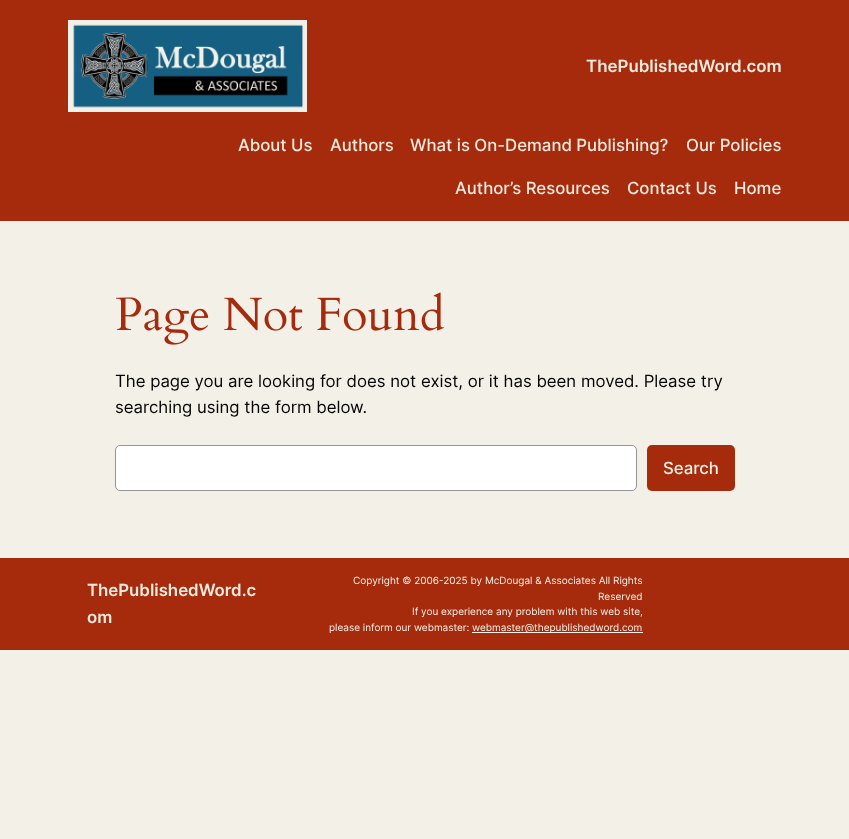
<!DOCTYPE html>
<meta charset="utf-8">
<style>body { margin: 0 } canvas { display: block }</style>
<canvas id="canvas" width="849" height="839"></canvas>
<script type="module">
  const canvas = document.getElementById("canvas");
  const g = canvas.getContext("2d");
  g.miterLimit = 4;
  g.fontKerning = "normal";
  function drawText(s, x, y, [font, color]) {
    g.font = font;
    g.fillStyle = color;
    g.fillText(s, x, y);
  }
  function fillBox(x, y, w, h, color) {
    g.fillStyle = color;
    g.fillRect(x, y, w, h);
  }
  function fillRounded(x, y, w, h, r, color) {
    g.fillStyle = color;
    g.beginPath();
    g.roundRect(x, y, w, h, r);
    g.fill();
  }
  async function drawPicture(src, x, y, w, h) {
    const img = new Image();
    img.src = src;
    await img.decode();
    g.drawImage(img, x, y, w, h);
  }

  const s1 = ["600 16.9px Inter", "#ECEADF"];
  const s2 = ["500 16.8px Inter", "#ECEADF"];
  const s3 = ["16.8px Inter", "#040404"];
  const s4 = ["500 16.8px Inter", "#F3F0E7"];
  const s5 = ["600 16.8px Inter", "#ECEADF"];
  const s6 = ["10px Inter", "#F3F0E7"];

  fillBox(0, 0, 849, 839, "#F3F0E7");
  fillBox(0, 0, 849, 221, "#A62B0C");
  await drawPicture("pic1.png", 68, 20, 239, 92);
  drawText("ThePublishedWord.com", 586, 72, s1);
  drawText("About Us", 238, 151, s2);
  drawText("Authors", 330, 151, s2);
  drawText("What is On-Demand Publishing?", 410, 151, s2);
  drawText("Our Policies", 686, 151, s2);
  drawText("Author’s Resources", 455, 194, s2);
  drawText("Contact Us", 627, 194, s2);
  drawText("Home", 734, 194, s2);
  await drawPicture("pic2.png", 115, 292, 330, 53);
  drawText("The page you are looking for does not exist, or it has been moved. Please try", 115, 387, s3);
  drawText("searching using the form below.", 115, 413, s3);
  g.fillStyle = "#FFFFFF";
  g.beginPath();
  g.roundRect(115.5, 445.5, 521, 45, 4.5);
  g.fill();
  g.strokeStyle = "#949494";
  g.stroke();
  fillRounded(647, 445, 88, 46, 5, "#A62B0C");
  drawText("Search", 663, 474, s4);
  fillBox(0, 558, 849, 92, "#A62B0C");
  drawText("ThePublishedWord.c", 87, 596, s5);
  drawText("om", 87, 623, s5);
  drawText("Copyright © 2006-2025 by McDougal & Associates All Rights", 353, 584, s6);
  drawText("Reserved", 598, 600, s6);
  drawText("If you experience any problem with this web site,", 412, 615, s6);
  drawText("please inform our webmaster:", 329, 631, s6);
  fillBox(472, 632, 171, 1, "#F3F0E7");
  drawText("webmaster@thepublishedword.com", 472, 631, s6);
</script>
